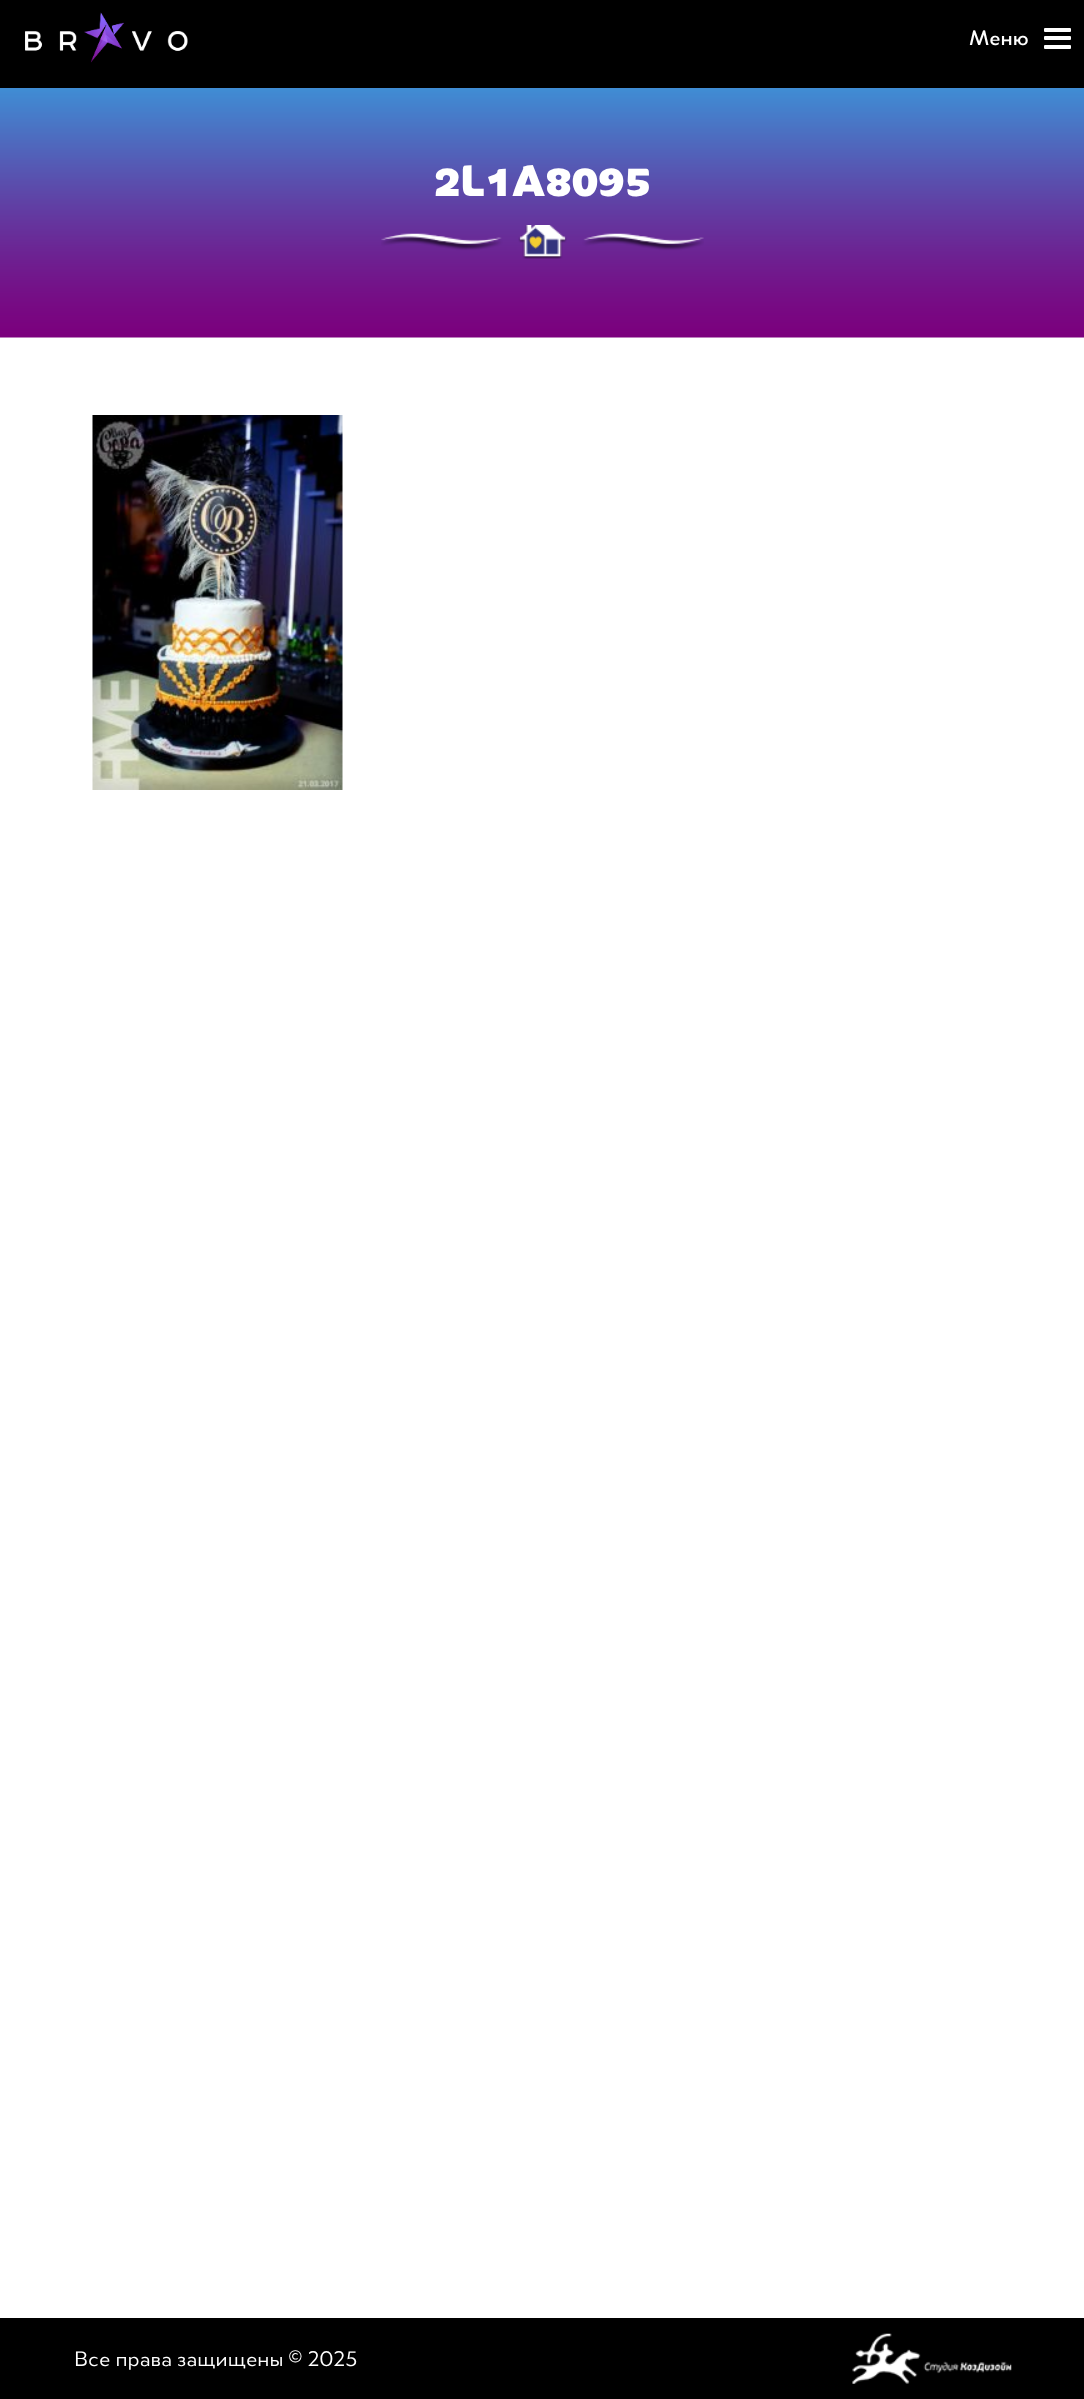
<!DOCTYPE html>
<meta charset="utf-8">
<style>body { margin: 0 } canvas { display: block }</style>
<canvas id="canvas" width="1084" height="2399"></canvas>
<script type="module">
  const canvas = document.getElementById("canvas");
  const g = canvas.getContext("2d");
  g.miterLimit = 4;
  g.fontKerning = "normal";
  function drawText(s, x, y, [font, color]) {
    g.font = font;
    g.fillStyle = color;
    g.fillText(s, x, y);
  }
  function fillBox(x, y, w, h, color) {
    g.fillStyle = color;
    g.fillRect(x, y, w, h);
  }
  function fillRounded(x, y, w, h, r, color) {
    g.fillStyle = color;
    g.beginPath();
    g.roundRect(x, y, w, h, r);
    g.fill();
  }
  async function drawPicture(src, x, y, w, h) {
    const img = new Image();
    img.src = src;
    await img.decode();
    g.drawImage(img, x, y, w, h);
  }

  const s1 = ["500 22.5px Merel", "#FFFFFF"];
  const s2 = ["800 47.5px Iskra", "#FFFFFF"];
  const s3 = ["22.5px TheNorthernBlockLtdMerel", "#FFFFFF"];

  fillBox(0, 0, 1084, 2399, "#FFFFFF");
  fillBox(0, 0, 1084, 88, "#000000");
  await drawPicture("pic1.png", 25, 12, 163, 51);
  drawText("Меню", 969, 45, s1);
  fillRounded(1044, 28, 27, 4, 1, "#FFFFFF");
  fillRounded(1044, 36, 27, 4, 1, "#FFFFFF");
  fillRounded(1044, 45, 27, 4, 1, "#FFFFFF");
  await drawPicture("pic2.png", 0, 88, 1084, 250);
  await drawPicture("pic3.png", 381, 225, 323, 34);
  drawText("2L1A8095", 434, 196, s2);
  await drawPicture("pic4.png", 92, 415, 251, 375);
  fillBox(0, 2318, 1084, 81, "#000000");
  drawText("Все права защищены © 2025", 74, 2366, s3);
  await drawPicture("pic5.png", 852, 2333, 160, 51);
</script>
